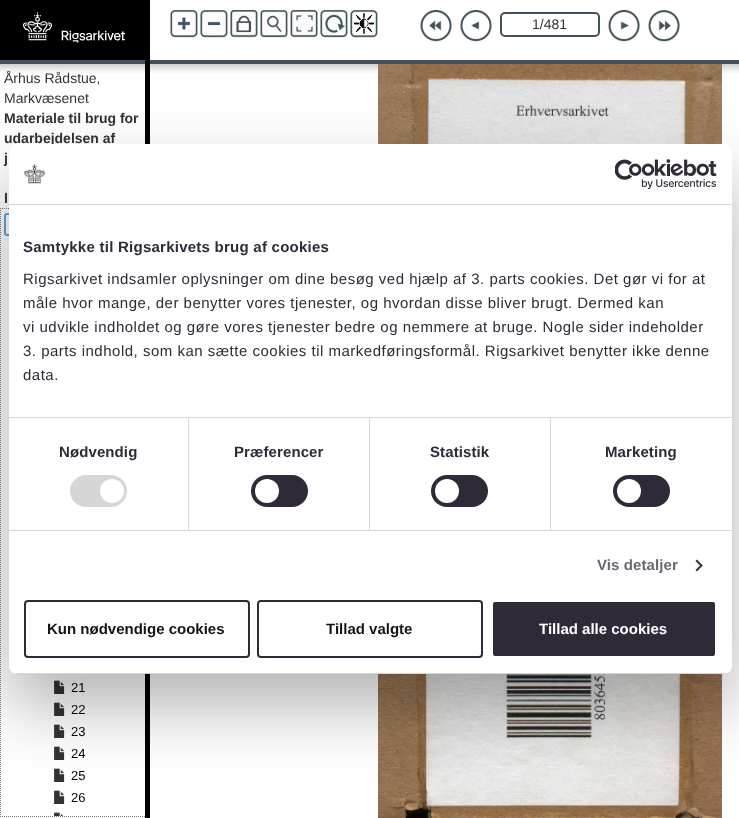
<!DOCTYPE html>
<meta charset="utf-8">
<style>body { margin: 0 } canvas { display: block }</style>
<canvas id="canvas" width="739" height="818"></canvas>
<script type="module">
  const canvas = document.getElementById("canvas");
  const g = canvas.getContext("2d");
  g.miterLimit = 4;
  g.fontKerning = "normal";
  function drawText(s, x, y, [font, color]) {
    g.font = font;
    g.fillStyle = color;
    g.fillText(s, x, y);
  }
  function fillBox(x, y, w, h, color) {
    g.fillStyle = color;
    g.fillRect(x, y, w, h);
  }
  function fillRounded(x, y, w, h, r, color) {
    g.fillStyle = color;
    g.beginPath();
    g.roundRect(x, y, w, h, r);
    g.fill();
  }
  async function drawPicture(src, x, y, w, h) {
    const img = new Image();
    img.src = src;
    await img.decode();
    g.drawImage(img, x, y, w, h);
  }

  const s1 = ["14px Liberation Sans", "#333333"];
  const s2 = ["bold 14px Liberation Sans", "#333333"];
  const s3 = ["13px Liberation Sans", "#000000"];
  const s4 = ["bold 15px Liberation Sans", "#302A38"];
  const s5 = ["15px Liberation Sans", "#302A38"];
  const s6 = ["bold 15px Liberation Sans", "#6B6574"];
  const s7 = ["bold 15px Liberation Sans", "#141414"];
  const s8 = ["bold 15px Liberation Sans", "#FFFFFF"];

  fillBox(0, 0, 739, 818, "#FFFFFF");
  await drawPicture("pic1.png", 150, 60, 589, 13);
  await drawPicture("pic2.png", 170, 10, 28, 28);
  await drawPicture("pic3.png", 200, 10, 28, 28);
  await drawPicture("pic4.png", 230, 10, 28, 28);
  await drawPicture("pic5.png", 260, 10, 28, 28);
  await drawPicture("pic6.png", 290, 10, 28, 28);
  await drawPicture("pic7.png", 320, 10, 28, 28);
  await drawPicture("pic8.png", 350, 10, 28, 28);
  await drawPicture("pic9.png", 420, 10, 32, 32);
  await drawPicture("pic10.png", 460, 10, 32, 32);
  g.beginPath();
  g.roundRect(501, 13, 98, 23, 4);
  g.strokeStyle = "#42525A";
  g.lineWidth = 2;
  g.stroke();
  drawText("1/481", 532, 29, s1);
  await drawPicture("pic11.png", 608, 10, 32, 32);
  await drawPicture("pic12.png", 648, 10, 32, 32);
  await drawPicture("pic13.png", 378, 64, 344, 754);
  await drawPicture("pic14.png", 0, 60, 145, 13);
  fillBox(0, 0, 145, 60, "#000000");
  await drawPicture("pic15.png", 23, 12, 102, 31);
  g.beginPath();
  g.moveTo(0, 208.5);
  g.lineTo(148, 208.5);
  g.strokeStyle = "#808080";
  g.lineWidth = 1;
  g.setLineDash([1, 1]);
  g.stroke();
  g.beginPath();
  g.moveTo(0, 816.5);
  g.lineTo(148, 816.5);
  g.stroke();
  fillBox(145, 0, 5, 818, "#000000");
  drawText("Århus Rådstue,", 4, 83, s1);
  drawText("Markvæsenet", 4, 103, s1);
  drawText("Materiale til brug for", 4, 123, s2);
  drawText("udarbejdelsen af", 4, 143, s2);
  drawText("j", 4, 163, s2);
  drawText("l", 4, 203, s2);
  g.beginPath();
  g.moveTo(0.5, 208);
  g.lineTo(0.5, 817);
  g.stroke();
  g.beginPath();
  g.roundRect(5, 214, 138, 21, 2);
  g.strokeStyle = "#6AA3D5";
  g.lineWidth = 2;
  g.setLineDash([]);
  g.stroke();
  await drawPicture("pic16.png", 54, 680, 11, 14);
  drawText("21", 71, 692, s3);
  await drawPicture("pic16.png", 54, 702, 11, 14);
  drawText("22", 71, 714, s3);
  await drawPicture("pic16.png", 54, 724, 11, 14);
  drawText("23", 71, 736, s3);
  await drawPicture("pic16.png", 54, 746, 11, 14);
  drawText("24", 71, 758, s3);
  await drawPicture("pic16.png", 54, 768, 11, 14);
  drawText("25", 71, 780, s3);
  await drawPicture("pic16.png", 54, 790, 11, 14);
  drawText("26", 71, 802, s3);
  await drawPicture("pic17.png", 54, 812, 9, 4);
  g.fillStyle = "rgba(0, 0, 0, 0.3)";
  g.filter = "blur(34px)";
  g.beginPath();
  g.roundRect(9, 176, 723, 530, 8);
  g.fill();
  g.filter = "none";
  fillRounded(9, 144, 723, 530, 8, "#FFFFFF");
  fillBox(9, 204, 723, 1, "#D6D6D6");
  await drawPicture("pic18.png", 23, 163, 23, 21);
  await drawPicture("pic19.png", 615, 159, 102, 30);
  fillBox(9, 417, 723, 1, "#D6D6D6");
  g.letterSpacing = "0.25px";
  drawText("Samtykke til Rigsarkivets brug af cookies", 23, 252, s4);
  g.letterSpacing = "0.5px";
  drawText("Rigsarkivet indsamler oplysninger om dine besøg ved hjælp af 3. parts cookies. Det gør vi for at", 23, 284, s5);
  drawText("måle hvor mange, der benytter vores tjenester, og hvordan disse bliver brugt. Dermed kan", 23, 308, s5);
  drawText("vi udvikle indholdet og gøre vores tjenester bedre og nemmere at bruge. Nogle sider indeholder", 23, 332, s5);
  drawText("3. parts indhold, som kan sætte cookies til markedføringsformål. Rigsarkivet benytter ikke denne", 23, 356, s5);
  drawText("data.", 23, 380, s5);
  fillBox(9, 530, 723, 1, "#D6D6D6");
  fillBox(188, 418, 1, 112, "#D6D6D6");
  g.letterSpacing = "0.1px";
  drawText("Nødvendig", 59, 457, s4);
  fillRounded(70, 475, 57, 32, 16, "#D6D6D6");
  g.fillStyle = "#FFFFFF";
  g.beginPath();
  g.arc(112, 491, 12, 0, Math.PI * 2);
  g.fill();
  fillBox(369, 418, 1, 112, "#D6D6D6");
  drawText("Præferencer", 234, 457, s4);
  fillRounded(251, 475, 57, 32, 16, "#302A38");
  g.fillStyle = "#FFFFFF";
  g.beginPath();
  g.arc(267, 491, 12, 0, Math.PI * 2);
  g.fill();
  fillBox(550, 418, 1, 112, "#D6D6D6");
  drawText("Statistik", 430, 457, s4);
  fillRounded(431, 475, 57, 32, 16, "#302A38");
  g.fillStyle = "#FFFFFF";
  g.beginPath();
  g.arc(447, 491, 12, 0, Math.PI * 2);
  g.fill();
  drawText("Marketing", 605, 457, s4);
  fillRounded(613, 475, 57, 32, 16, "#302A38");
  g.fillStyle = "#FFFFFF";
  g.beginPath();
  g.arc(629, 491, 12, 0, Math.PI * 2);
  g.fill();
  drawText("Vis detaljer", 597, 570, s6);
  g.fillStyle = "#302A38";
  g.beginPath();
  g.moveTo(697, 559.5);
  g.lineTo(702.5, 565.5);
  g.lineTo(701.5, 567);
  g.lineTo(695.5, 561);
  g.closePath();
  g.fill();
  g.beginPath();
  g.moveTo(701.5, 564);
  g.lineTo(702.5, 565.5);
  g.lineTo(697, 571.5);
  g.lineTo(695.5, 570);
  g.closePath();
  g.fill();
  g.save();
  g.beginPath();
  g.roundRect(9, 144, 723, 530, 8);
  g.clip();
  fillBox(9, 673, 723, 1, "#D6D6D6");
  g.restore();
  g.beginPath();
  g.roundRect(25, 601, 224, 56, 3);
  g.strokeStyle = "#302A38";
  g.stroke();
  g.letterSpacing = "0px";
  drawText("Kun nødvendige cookies", 47, 634, s7);
  g.beginPath();
  g.roundRect(258, 601, 224, 56, 3);
  g.stroke();
  drawText("Tillad valgte", 326, 634, s7);
  g.fillStyle = "#302A38";
  g.beginPath();
  g.roundRect(492, 601, 224, 56, 3);
  g.fill();
  g.strokeStyle = "#FFFFFF";
  g.stroke();
  drawText("Tillad alle cookies", 539, 634, s8);
</script>
